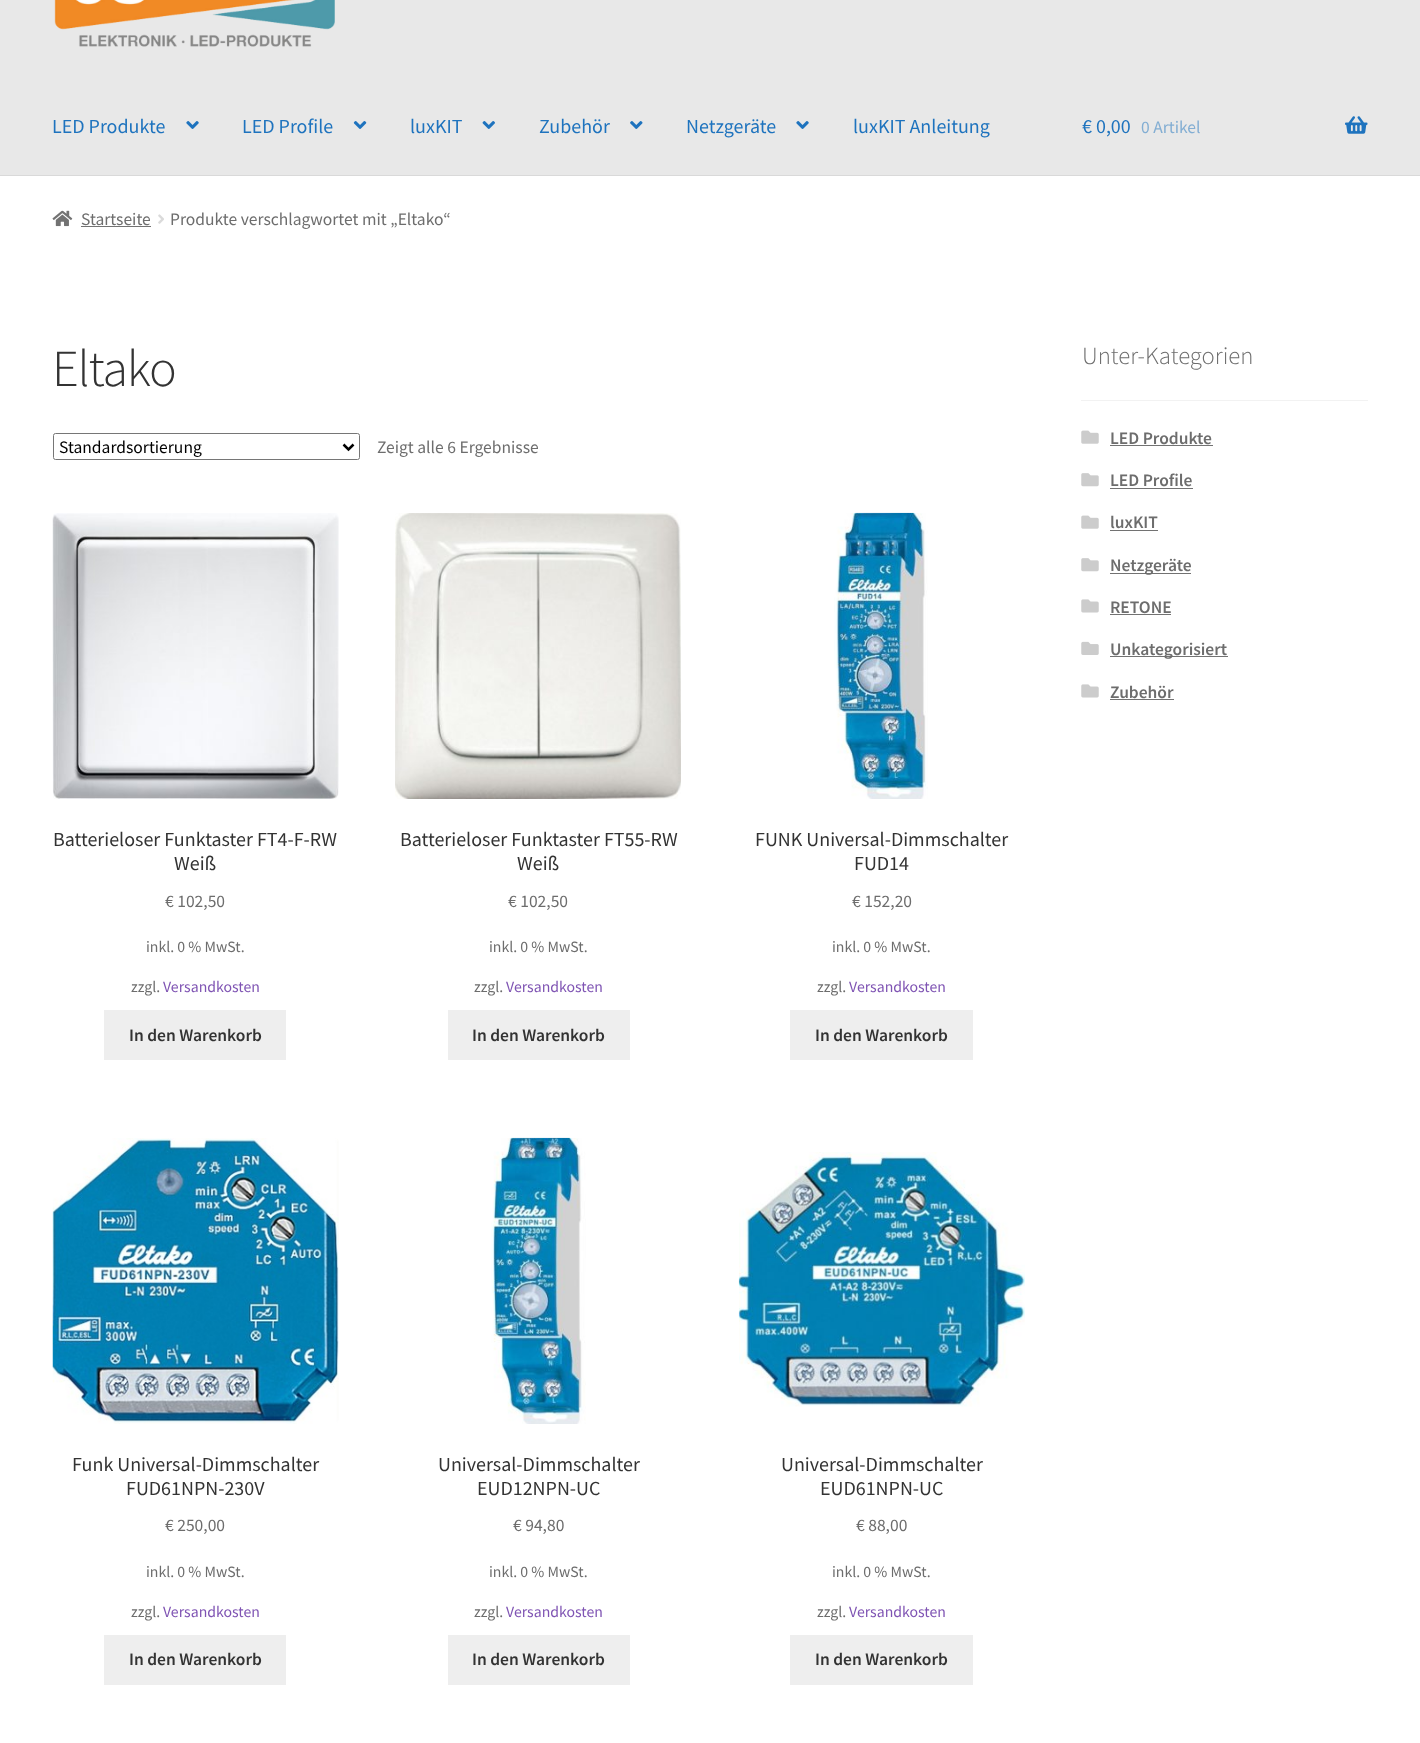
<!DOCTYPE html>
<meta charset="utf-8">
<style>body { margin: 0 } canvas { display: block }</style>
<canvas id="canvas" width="1420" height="1743"></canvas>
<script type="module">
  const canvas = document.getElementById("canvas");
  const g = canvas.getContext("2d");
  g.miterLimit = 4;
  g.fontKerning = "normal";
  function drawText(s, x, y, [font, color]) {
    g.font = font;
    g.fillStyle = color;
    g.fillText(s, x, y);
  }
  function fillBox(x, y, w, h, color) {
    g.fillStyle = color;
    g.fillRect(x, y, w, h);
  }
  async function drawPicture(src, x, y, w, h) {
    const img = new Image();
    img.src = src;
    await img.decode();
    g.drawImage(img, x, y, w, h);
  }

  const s1 = ["20px Source Sans Pro", "#1E73BE"];
  const s2 = ["17.5px Source Sans Pro", "#83AED3"];
  const s3 = ["17.5px Source Sans Pro", "#6D6D6D"];
  const s4 = ["300 52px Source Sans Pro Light", "#333333"];
  const s5 = ["17.5px Source Sans Pro", "#000000"];
  const s6 = ["20px Source Sans Pro", "#333333"];
  const s7 = ["15.75px Source Sans Pro", "#6D6D6D"];
  const s8 = ["15.75px Source Sans Pro", "#7F54B3"];
  const s9 = ["600 17.5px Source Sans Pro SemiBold", "#333333"];
  const s10 = ["300 24.75px Source Sans Pro Light", "#6D6D6D"];
  const s11 = ["600 17.5px Source Sans Pro SemiBold", "#6D6D6D"];

  fillBox(0, 0, 1420, 1743, "#FFFFFF");
  fillBox(0, 0, 1420, 175, "#E8E8E8");
  fillBox(0, 175, 1420, 1, "#D9D9D9");
  await drawPicture("pic1.png", 54, 0, 281, 47);
  drawText("LED Produkte", 52, 133, s1);
  await drawPicture("pic2.png", 186, 121, 13, 8);
  drawText("LED Profile", 242, 133, s1);
  await drawPicture("pic3.png", 353, 121, 14, 8);
  drawText("luxKIT", 410, 133, s1);
  await drawPicture("pic4.png", 482, 121, 13, 8);
  drawText("Zubehör", 539, 133, s1);
  await drawPicture("pic5.png", 630, 121, 13, 8);
  drawText("Netzgeräte", 686, 133, s1);
  await drawPicture("pic2.png", 796, 121, 13, 8);
  drawText("luxKIT Anleitung", 853, 133, s1);
  drawText("€ 0,00", 1082, 133, s1);
  drawText("0 Artikel", 1141, 133, s2);
  await drawPicture("pic6.png", 1345, 116, 23, 18);
  await drawPicture("pic7.png", 52, 210, 21, 17);
  drawText("Startseite", 81, 225, s3);
  fillBox(81, 226, 70, 1, "#727272");
  await drawPicture("pic8.png", 158, 214, 6, 10);
  drawText("Produkte verschlagwortet mit „Eltako“", 170, 225, s3);
  g.letterSpacing = "-1.25px";
  drawText("Eltako", 52, 386, s4);
  g.beginPath();
  g.roundRect(53.5, 433.5, 306, 26, 2);
  g.strokeStyle = "#767676";
  g.stroke();
  g.beginPath();
  g.moveTo(343.5, 444.5);
  g.lineTo(348.5, 449.5);
  g.lineTo(353.5, 444.5);
  g.strokeStyle = "#000000";
  g.lineWidth = 2.5;
  g.stroke();
  g.letterSpacing = "0px";
  drawText("Standardsortierung", 59, 453, s5);
  drawText("Zeigt alle 6 Ergebnisse", 377, 453, s3);
  await drawPicture("pic9.png", 52, 513, 287, 286);
  drawText("Batterieloser Funktaster FT4-F-RW", 53, 846, s6);
  drawText("Weiß", 174, 870, s6);
  drawText("€ 102,50", 165, 907, s3);
  drawText("inkl. 0 % MwSt.", 146, 952, s7);
  drawText("zzgl.", 131, 992, s7);
  drawText("Versandkosten", 163, 992, s8);
  fillBox(104, 1010, 182, 50, "#EEEEEE");
  drawText("In den Warenkorb", 129, 1041, s9);
  await drawPicture("pic10.png", 395, 513, 286, 286);
  drawText("Batterieloser Funktaster FT55-RW", 400, 846, s6);
  drawText("Weiß", 517, 870, s6);
  drawText("€ 102,50", 508, 907, s3);
  drawText("inkl. 0 % MwSt.", 489, 952, s7);
  drawText("zzgl.", 474, 992, s7);
  drawText("Versandkosten", 506, 992, s8);
  fillBox(448, 1010, 182, 50, "#EEEEEE");
  drawText("In den Warenkorb", 472, 1041, s9);
  await drawPicture("pic11.png", 834, 512, 94, 287);
  drawText("FUNK Universal-Dimmschalter", 755, 846, s6);
  drawText("FUD14", 854, 870, s6);
  drawText("€ 152,20", 852, 907, s3);
  drawText("inkl. 0 % MwSt.", 832, 952, s7);
  drawText("zzgl.", 817, 992, s7);
  drawText("Versandkosten", 849, 992, s8);
  fillBox(790, 1010, 183, 50, "#EEEEEE");
  drawText("In den Warenkorb", 815, 1041, s9);
  await drawPicture("pic12.png", 52, 1138, 287, 286);
  drawText("Funk Universal-Dimmschalter", 72, 1471, s6);
  drawText("FUD61NPN-230V", 126, 1495, s6);
  drawText("€ 250,00", 165, 1531, s3);
  drawText("inkl. 0 % MwSt.", 146, 1577, s7);
  drawText("zzgl.", 131, 1617, s7);
  drawText("Versandkosten", 163, 1617, s8);
  fillBox(104, 1635, 182, 50, "#EEEEEE");
  drawText("In den Warenkorb", 129, 1665, s9);
  await drawPicture("pic13.png", 491, 1137, 95, 287);
  drawText("Universal-Dimmschalter", 438, 1471, s6);
  drawText("EUD12NPN-UC", 477, 1495, s6);
  drawText("€ 94,80", 513, 1531, s3);
  drawText("inkl. 0 % MwSt.", 489, 1577, s7);
  drawText("zzgl.", 474, 1617, s7);
  drawText("Versandkosten", 506, 1617, s8);
  fillBox(448, 1635, 182, 50, "#EEEEEE");
  drawText("In den Warenkorb", 472, 1665, s9);
  await drawPicture("pic14.png", 738, 1152, 287, 255);
  drawText("Universal-Dimmschalter", 781, 1471, s6);
  drawText("EUD61NPN-UC", 820, 1495, s6);
  drawText("€ 88,00", 856, 1531, s3);
  drawText("inkl. 0 % MwSt.", 832, 1577, s7);
  drawText("zzgl.", 817, 1617, s7);
  drawText("Versandkosten", 849, 1617, s8);
  fillBox(790, 1635, 183, 50, "#EEEEEE");
  drawText("In den Warenkorb", 815, 1665, s9);
  fillBox(1081, 400, 287, 1, "#F2F2F2");
  drawText("Unter-Kategorien", 1082, 364, s10);
  await drawPicture("pic15.png", 1081, 430, 18, 14);
  drawText("LED Produkte", 1110, 444, s11);
  fillBox(1110, 445, 103, 1, "#727272");
  await drawPicture("pic16.png", 1081, 473, 18, 14);
  drawText("LED Profile", 1110, 486, s11);
  fillBox(1110, 488, 83, 1, "#727272");
  await drawPicture("pic15.png", 1081, 515, 18, 14);
  drawText("luxKIT", 1110, 528, s11);
  fillBox(1110, 530, 48, 1, "#727272");
  await drawPicture("pic16.png", 1081, 558, 18, 14);
  fillBox(1110, 573, 81, 1, "#727272");
  drawText("Netzgeräte", 1110, 571, s11);
  await drawPicture("pic17.png", 1081, 599, 18, 14);
  drawText("RETONE", 1110, 613, s11);
  fillBox(1110, 614, 61, 1, "#727272");
  await drawPicture("pic18.png", 1081, 641, 18, 14);
  fillBox(1110, 656, 118, 1, "#727272");
  drawText("Unkategorisiert", 1110, 655, s11);
  await drawPicture("pic17.png", 1081, 684, 18, 14);
  drawText("Zubehör", 1110, 698, s11);
  fillBox(1110, 699, 64, 1, "#727272");
</script>
